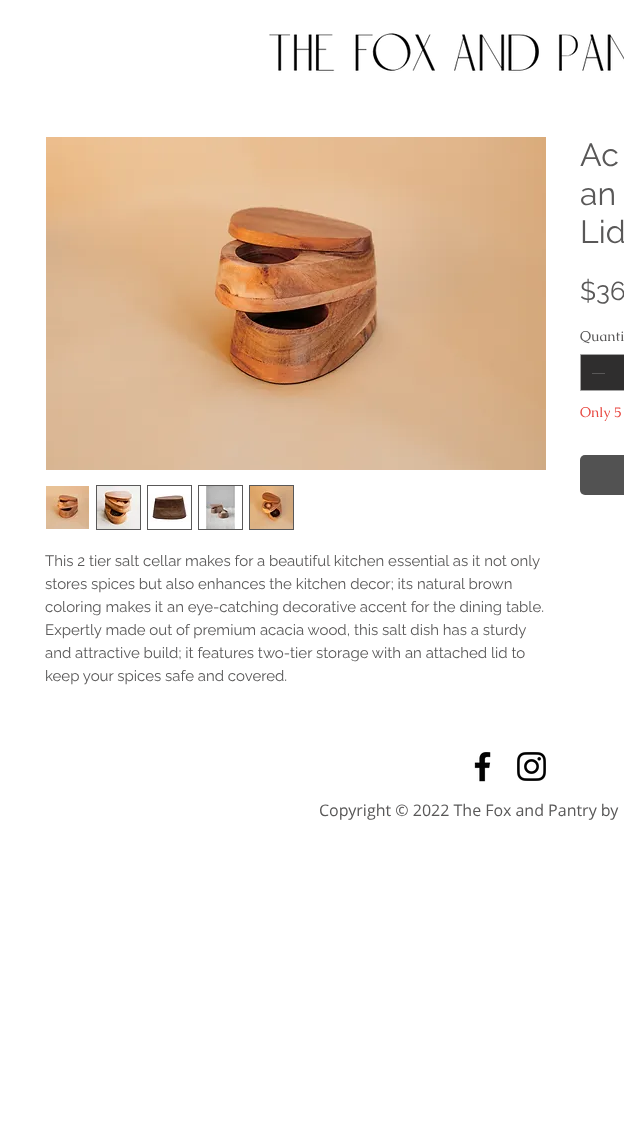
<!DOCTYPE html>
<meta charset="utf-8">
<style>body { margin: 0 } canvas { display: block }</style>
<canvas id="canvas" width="624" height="1131"></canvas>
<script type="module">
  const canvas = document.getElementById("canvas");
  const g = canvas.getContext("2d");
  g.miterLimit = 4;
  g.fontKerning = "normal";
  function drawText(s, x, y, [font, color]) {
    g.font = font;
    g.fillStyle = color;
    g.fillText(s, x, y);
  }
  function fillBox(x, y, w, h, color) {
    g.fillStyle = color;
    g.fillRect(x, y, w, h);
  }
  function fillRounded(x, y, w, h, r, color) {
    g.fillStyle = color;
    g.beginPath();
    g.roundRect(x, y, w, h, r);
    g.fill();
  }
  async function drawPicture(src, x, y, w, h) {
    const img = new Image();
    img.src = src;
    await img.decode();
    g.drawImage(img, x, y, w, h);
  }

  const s1 = ["32px Raleway", "#595858"];
  const s2 = ["26px Raleway", "#595858"];
  const s3 = ["14px Caudex", "#595858"];
  const s4 = ["14px Caudex", "#E84A43"];
  const s5 = ["15px Raleway", "#595858"];
  const s6 = ["16px Open Sans", "#595858"];

  fillBox(0, 0, 624, 1131, "#FFFFFF");
  await drawPicture("pic1.png", 269, 33, 355, 40);
  drawText("Ac", 580, 166, s1);
  drawText("an", 580, 205, s1);
  drawText("Lid", 580, 243, s1);
  drawText("$36", 580, 300, s2);
  drawText("Quanti", 580, 341, s3);
  g.fillStyle = "#2F2E2E";
  g.beginPath();
  g.rect(580.5, 354.5, 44, 36);
  g.fill();
  g.strokeStyle = "#A4A4A4";
  g.stroke();
  fillBox(592, 373, 13, 1, "#595858");
  drawText("Only 5", 580, 417, s4);
  fillRounded(580, 455, 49, 40, 5, "#525252");
  await drawPicture("pic2.png", 46, 137, 500, 333);
  await drawPicture("pic3.png", 46, 486, 43, 43);
  g.strokeStyle = "#595858";
  g.strokeRect(96.5, 485.5, 44, 44);
  await drawPicture("pic4.png", 97, 486, 43, 43);
  g.strokeRect(147.5, 485.5, 44, 44);
  await drawPicture("pic5.png", 148, 494, 43, 28);
  g.strokeRect(198.5, 485.5, 44, 44);
  await drawPicture("pic6.png", 206, 486, 29, 43);
  g.strokeRect(249.5, 485.5, 44, 44);
  await drawPicture("pic7.png", 250, 486, 43, 43);
  drawText("This 2 tier salt cellar makes for a beautiful kitchen essential as it not only", 45, 566, s5);
  drawText("stores spices but also enhances the kitchen decor; its natural brown", 45, 589, s5);
  drawText("coloring makes it an eye-catching decorative accent for the dining table.", 45, 612, s5);
  drawText("Expertly made out of premium acacia wood, this salt dish has a sturdy", 45, 635, s5);
  drawText("and attractive build; it features two-tier storage with an attached lid to", 45, 658, s5);
  drawText("keep your spices safe and covered.", 45, 681, s5);
  await drawPicture("pic8.png", 474, 752, 17, 30);
  await drawPicture("pic9.png", 517, 752, 29, 29);
  drawText("Copyright © 2022 The Fox and Pantry by", 319, 816, s6);
</script>
